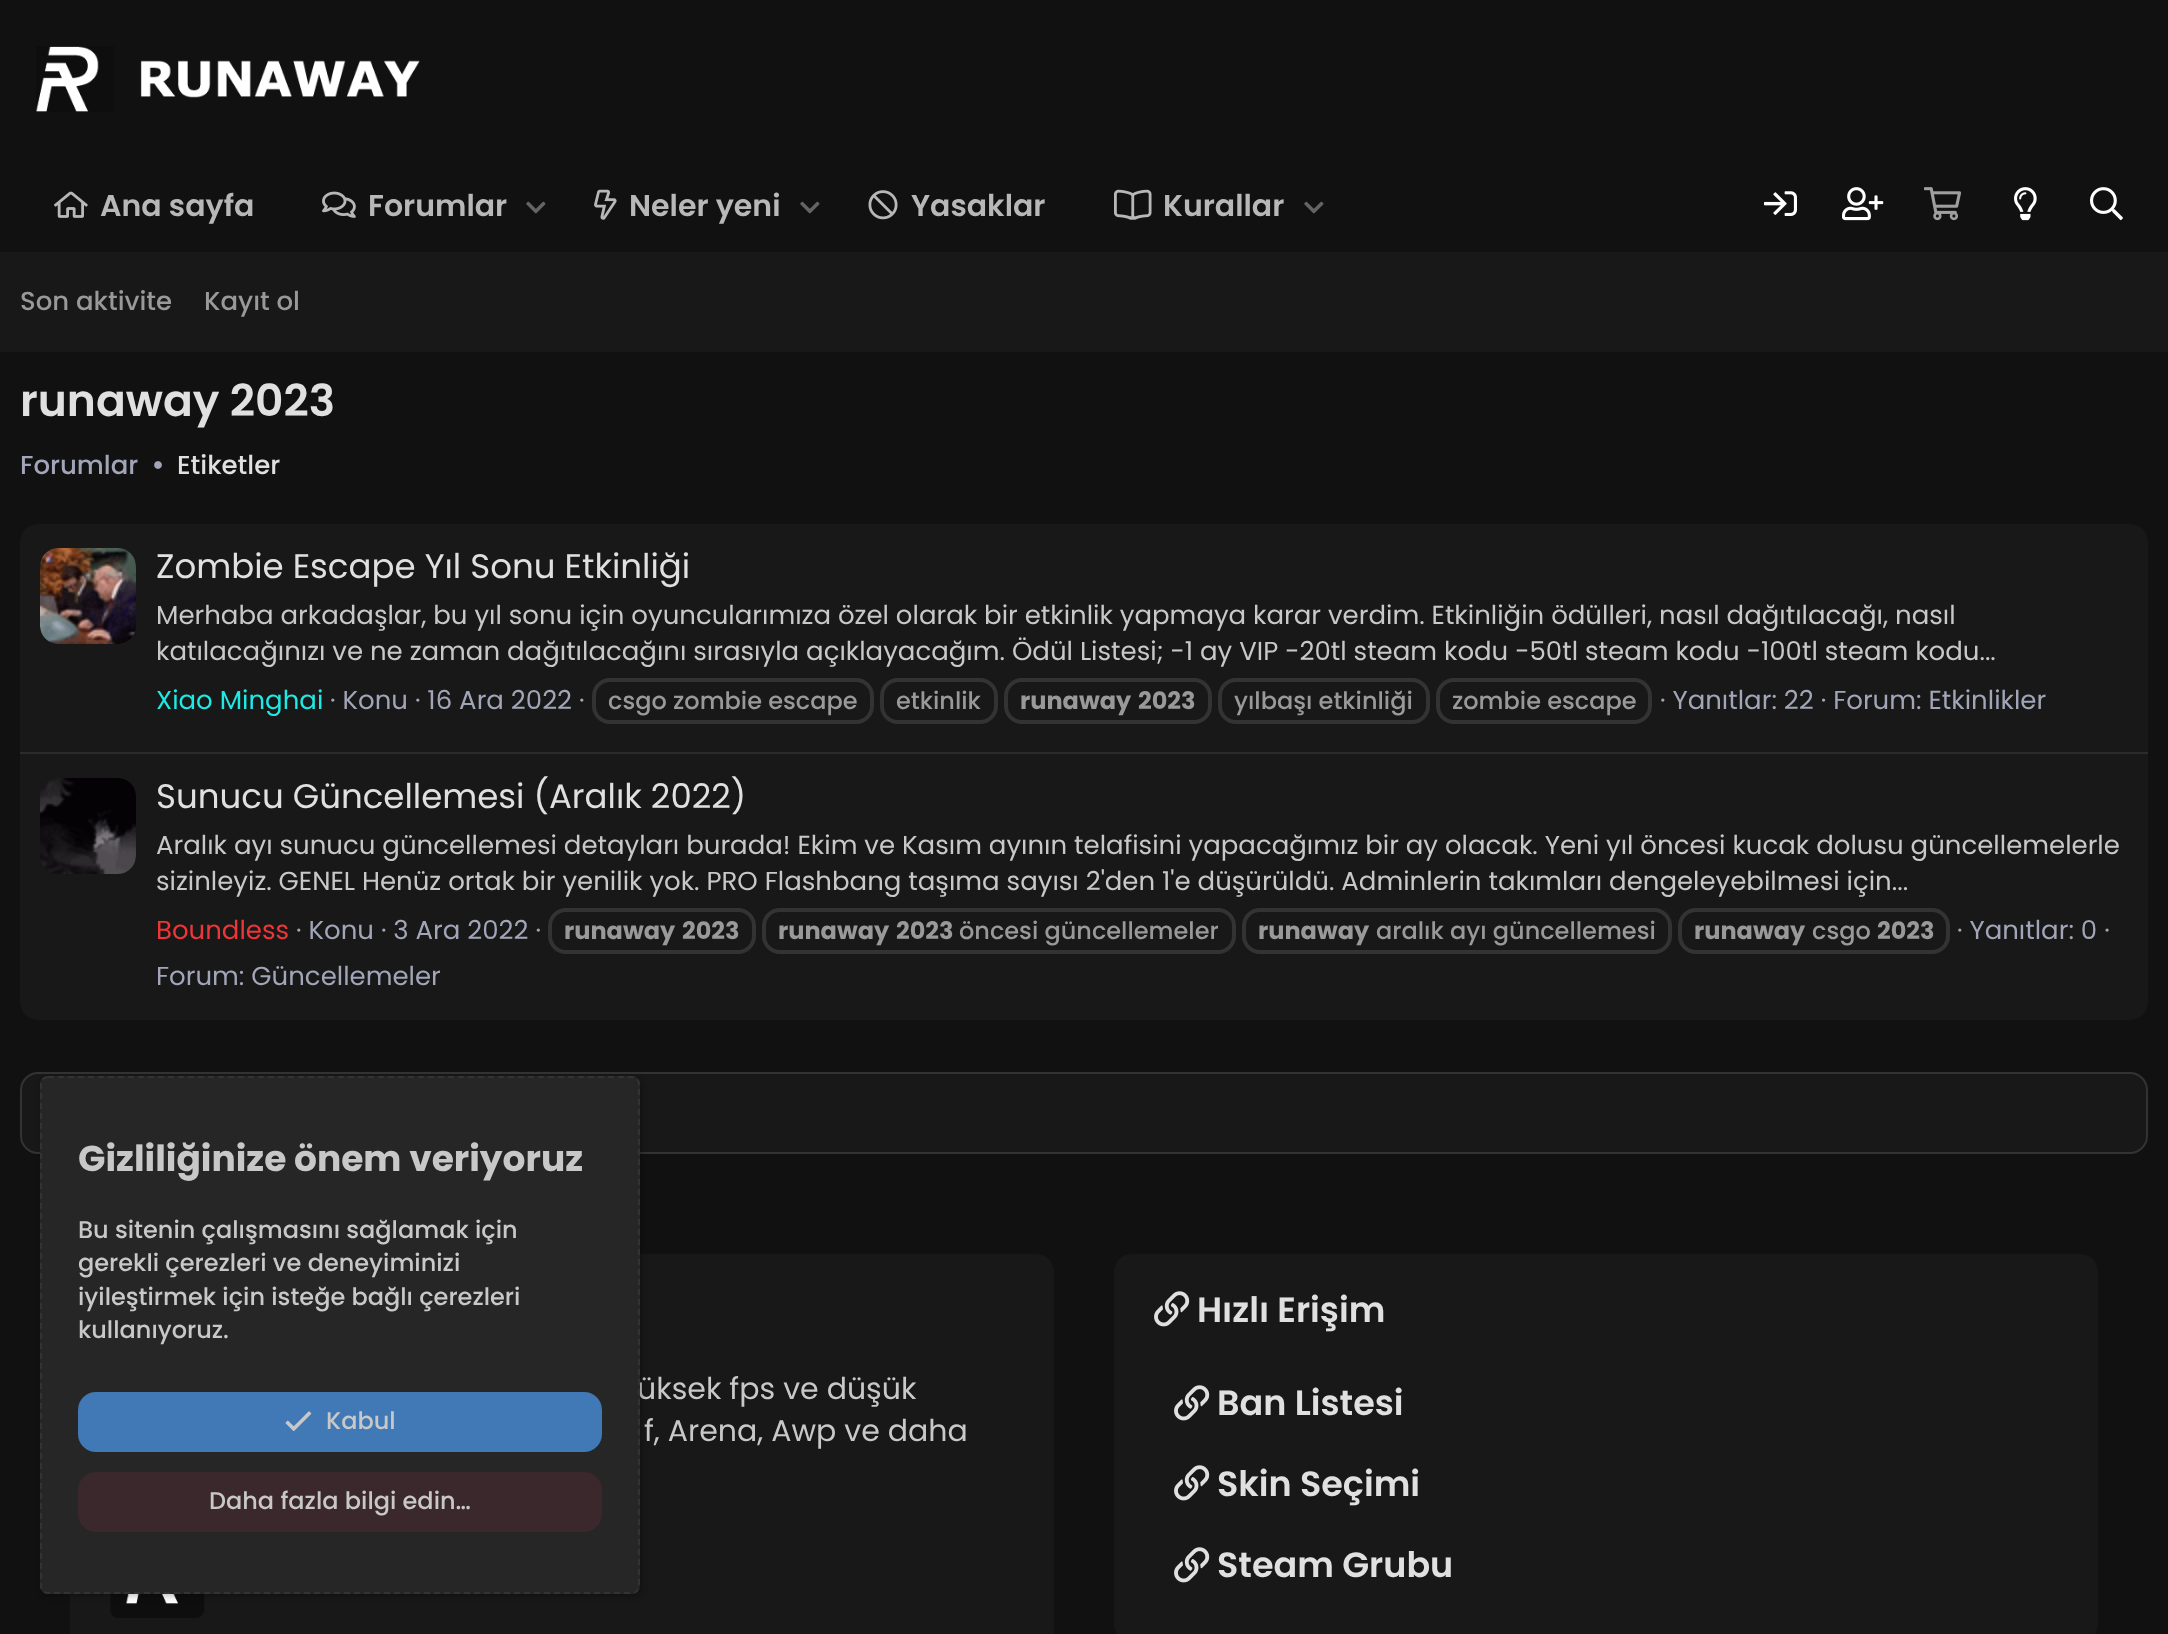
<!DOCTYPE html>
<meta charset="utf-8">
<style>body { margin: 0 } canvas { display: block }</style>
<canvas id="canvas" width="2168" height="1634"></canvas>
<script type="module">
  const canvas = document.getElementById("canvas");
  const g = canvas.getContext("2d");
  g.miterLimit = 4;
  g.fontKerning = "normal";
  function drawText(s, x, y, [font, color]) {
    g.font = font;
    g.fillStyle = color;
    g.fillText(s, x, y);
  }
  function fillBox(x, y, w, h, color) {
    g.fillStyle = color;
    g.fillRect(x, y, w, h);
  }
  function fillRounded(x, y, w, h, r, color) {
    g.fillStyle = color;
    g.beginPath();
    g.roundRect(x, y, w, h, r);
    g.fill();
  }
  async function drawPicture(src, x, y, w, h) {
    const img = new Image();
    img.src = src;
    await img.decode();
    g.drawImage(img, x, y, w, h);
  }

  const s1 = ["600 30px Poppins", "#B8B8B8"];
  const s2 = ["500 26px Poppins", "#999999"];
  const s3 = ["600 44px Poppins", "#E0E0E0"];
  const s4 = ["500 26px Poppins", "#A1A5B7"];
  const s5 = ["500 26px Poppins", "#E0E0E0"];
  const s6 = ["34px Poppins", "#E0E0E0"];
  const s7 = ["26px Poppins", "#C8C8C8"];
  const s8 = ["26px Poppins", "#1EE9E3"];
  const s9 = ["26px Poppins", "#A1A5B7"];
  const s10 = ["500 24px Poppins", "#999999"];
  const s11 = ["bold 24px Poppins", "#999999"];
  const s12 = ["26px Poppins", "#EE3638"];
  const s13 = ["30px Poppins", "#C8C8C8"];
  const s14 = ["600 35px Poppins", "#E0E0E0"];
  const s15 = ["bold 36px Poppins", "#C8C8C8"];
  const s16 = ["500 24px Poppins", "#C8C8C8"];

  fillBox(0, 0, 2168, 1634, "#111111");
  await drawPicture("pic1.png", 36, 46, 384, 66);
  await drawPicture("pic2.png", 54, 191, 34, 27);
  drawText("Ana sayfa", 100, 216, s1);
  await drawPicture("pic3.png", 322, 191, 34, 27);
  drawText("Forumlar", 368, 216, s1);
  await drawPicture("pic4.png", 526, 201, 20, 13);
  await drawPicture("pic5.png", 594, 189, 23, 31);
  drawText("Neler yeni", 629, 216, s1);
  await drawPicture("pic4.png", 800, 201, 20, 13);
  await drawPicture("pic6.png", 868, 190, 30, 30);
  drawText("Yasaklar", 911, 216, s1);
  await drawPicture("pic7.png", 1114, 189, 38, 31);
  drawText("Kurallar", 1163, 216, s1);
  await drawPicture("pic4.png", 1304, 201, 20, 13);
  await drawPicture("pic8.png", 1764, 191, 33, 25);
  await drawPicture("pic9.png", 1842, 187, 42, 34);
  await drawPicture("pic10.png", 1924, 187, 38, 34);
  await drawPicture("pic11.png", 2014, 187, 23, 34);
  await drawPicture("pic12.png", 2090, 187, 33, 34);
  fillBox(0, 252, 2168, 100, "#181818");
  drawText("Son aktivite", 20, 310, s2);
  drawText("Kayıt ol", 204, 310, s2);
  drawText("runaway 2023", 20, 416, s3);
  drawText("Forumlar", 20, 474, s4);
  await drawPicture("pic13.png", 154, 461, 8, 8);
  drawText("Etiketler", 177, 474, s5);
  fillRounded(20, 524, 2128, 496, 18, "#181818");
  await drawPicture("pic14.png", 40, 548, 96, 96);
  drawText("Zombie Escape Yıl Sonu Etkinliği", 156, 578, s6);
  drawText("Merhaba arkadaşlar, bu yıl sonu için oyuncularımıza özel olarak bir etkinlik yapmaya karar verdim. Etkinliğin ödülleri, nasıl dağıtılacağı, nasıl", 156, 624, s7);
  drawText("katılacağınızı ve ne zaman dağıtılacağını sırasıyla açıklayacağım. Ödül Listesi; -1 ay VIP -20tl steam kodu -50tl steam kodu -100tl steam kodu...", 156, 660, s7);
  drawText("Xiao Minghai", 156, 709, s8);
  drawText("· Konu · 16 Ara 2022 ·", 330, 709, s9);
  g.beginPath();
  g.roundRect(594, 680, 278, 42, 16);
  g.strokeStyle = "#333333";
  g.lineWidth = 4;
  g.stroke();
  drawText("csgo zombie escape", 608, 709, s10);
  g.beginPath();
  g.roundRect(882, 680, 114, 42, 16);
  g.stroke();
  drawText("etkinlik", 896, 709, s10);
  g.beginPath();
  g.roundRect(1006, 680, 204, 42, 16);
  g.stroke();
  drawText("runaway", 1020, 709, s11);
  drawText("2023", 1138, 709, s11);
  g.beginPath();
  g.roundRect(1220, 680, 208, 42, 16);
  g.stroke();
  drawText("yılbaşı etkinliği", 1234, 709, s10);
  g.beginPath();
  g.roundRect(1438, 680, 212, 42, 16);
  g.stroke();
  drawText("zombie escape", 1452, 709, s10);
  drawText("· Yanıtlar: 22 · Forum: Etkinlikler", 1660, 709, s9);
  fillBox(20, 752, 2128, 2, "#2B2B2B");
  await drawPicture("pic15.png", 40, 778, 96, 96);
  drawText("Sunucu Güncellemesi (Aralık 2022)", 156, 808, s6);
  drawText("Aralık ayı sunucu güncellemesi detayları burada! Ekim ve Kasım ayının telafisini yapacağımız bir ay olacak. Yeni yıl öncesi kucak dolusu güncellemelerle", 156, 854, s7);
  drawText("sizinleyiz. GENEL Henüz ortak bir yenilik yok. PRO Flashbang taşıma sayısı 2'den 1'e düşürüldü. Adminlerin takımları dengeleyebilmesi için...", 156, 890, s7);
  drawText("Boundless", 156, 939, s12);
  drawText("· Konu · 3 Ara 2022 ·", 296, 939, s9);
  g.beginPath();
  g.roundRect(550, 910, 204, 42, 16);
  g.stroke();
  drawText("runaway", 564, 939, s11);
  drawText("2023", 682, 939, s11);
  g.beginPath();
  g.roundRect(764, 910, 470, 42, 16);
  g.stroke();
  drawText("runaway", 778, 939, s11);
  drawText("2023", 896, 939, s11);
  drawText("öncesi güncellemeler", 959, 939, s10);
  g.beginPath();
  g.roundRect(1244, 910, 426, 42, 16);
  g.stroke();
  drawText("runaway", 1258, 939, s11);
  drawText("aralık ayı güncellemesi", 1376, 939, s10);
  g.beginPath();
  g.roundRect(1680, 910, 268, 42, 16);
  g.stroke();
  drawText("runaway", 1694, 939, s11);
  drawText("csgo", 1812, 939, s10);
  drawText("2023", 1877, 939, s11);
  drawText("· Yanıtlar: 0 ·", 1957, 939, s9);
  drawText("Forum: Güncellemeler", 156, 985, s9);
  g.fillStyle = "#181818";
  g.beginPath();
  g.roundRect(21, 1073, 2126, 80, 17);
  g.fill();
  g.lineWidth = 2;
  g.stroke();
  fillRounded(70, 1254, 984, 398, 18, "#181818");
  drawText("üksek fps ve düşük", 637, 1399, s13);
  drawText("f, Arena, Awp ve daha", 644, 1441, s13);
  await drawPicture("pic16.png", 110, 1594, 95, 24);
  fillRounded(1114, 1254, 984, 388, 18, "#181818");
  await drawPicture("pic17.png", 1154, 1291, 36, 36);
  drawText("Hızlı Erişim", 1197, 1322, s14);
  await drawPicture("pic17.png", 1174, 1385, 36, 36);
  drawText("Ban Listesi", 1217, 1415, s14);
  await drawPicture("pic17.png", 1174, 1465, 36, 36);
  drawText("Skin Seçimi", 1217, 1496, s14);
  await drawPicture("pic17.png", 1174, 1547, 36, 36);
  drawText("Steam Grubu", 1217, 1577, s14);
  g.fillStyle = "rgba(0, 0, 0, 0.25)";
  g.filter = "blur(3px)";
  g.beginPath();
  g.roundRect(42, 1078, 600, 518, 8);
  g.fill();
  g.filter = "none";
  fillRounded(40, 1076, 600, 518, 8, "#262626");
  g.beginPath();
  g.moveTo(48, 1077);
  g.lineTo(632, 1077);
  g.bezierCurveTo(636, 1077, 639, 1080, 639, 1084);
  g.lineTo(639, 1586);
  g.bezierCurveTo(639, 1590, 636, 1593, 632, 1593);
  g.lineTo(48, 1593);
  g.bezierCurveTo(44, 1593, 41, 1590, 41, 1586);
  g.lineTo(41, 1084);
  g.bezierCurveTo(41, 1080, 44, 1077, 48, 1077);
  g.closePath();
  g.setLineDash([6, 4]);
  g.stroke();
  drawText("Gizliliğinize önem veriyoruz", 78, 1171, s15);
  drawText("Bu sitenin çalışmasını sağlamak için", 78, 1238, s16);
  drawText("gerekli çerezleri ve deneyiminizi", 78, 1271, s16);
  drawText("iyileştirmek için isteğe bağlı çerezleri", 78, 1305, s16);
  drawText("kullanıyoruz.", 78, 1338, s16);
  fillRounded(78, 1392, 524, 60, 18, "#4079B5");
  await drawPicture("pic18.png", 285, 1411, 27, 21);
  drawText("Kabul", 326, 1429, s16);
  fillRounded(78, 1472, 524, 60, 18, "rgba(244, 63, 94, 0.1)");
  drawText("Daha fazla bilgi edin…", 209, 1509, s16);
</script>
